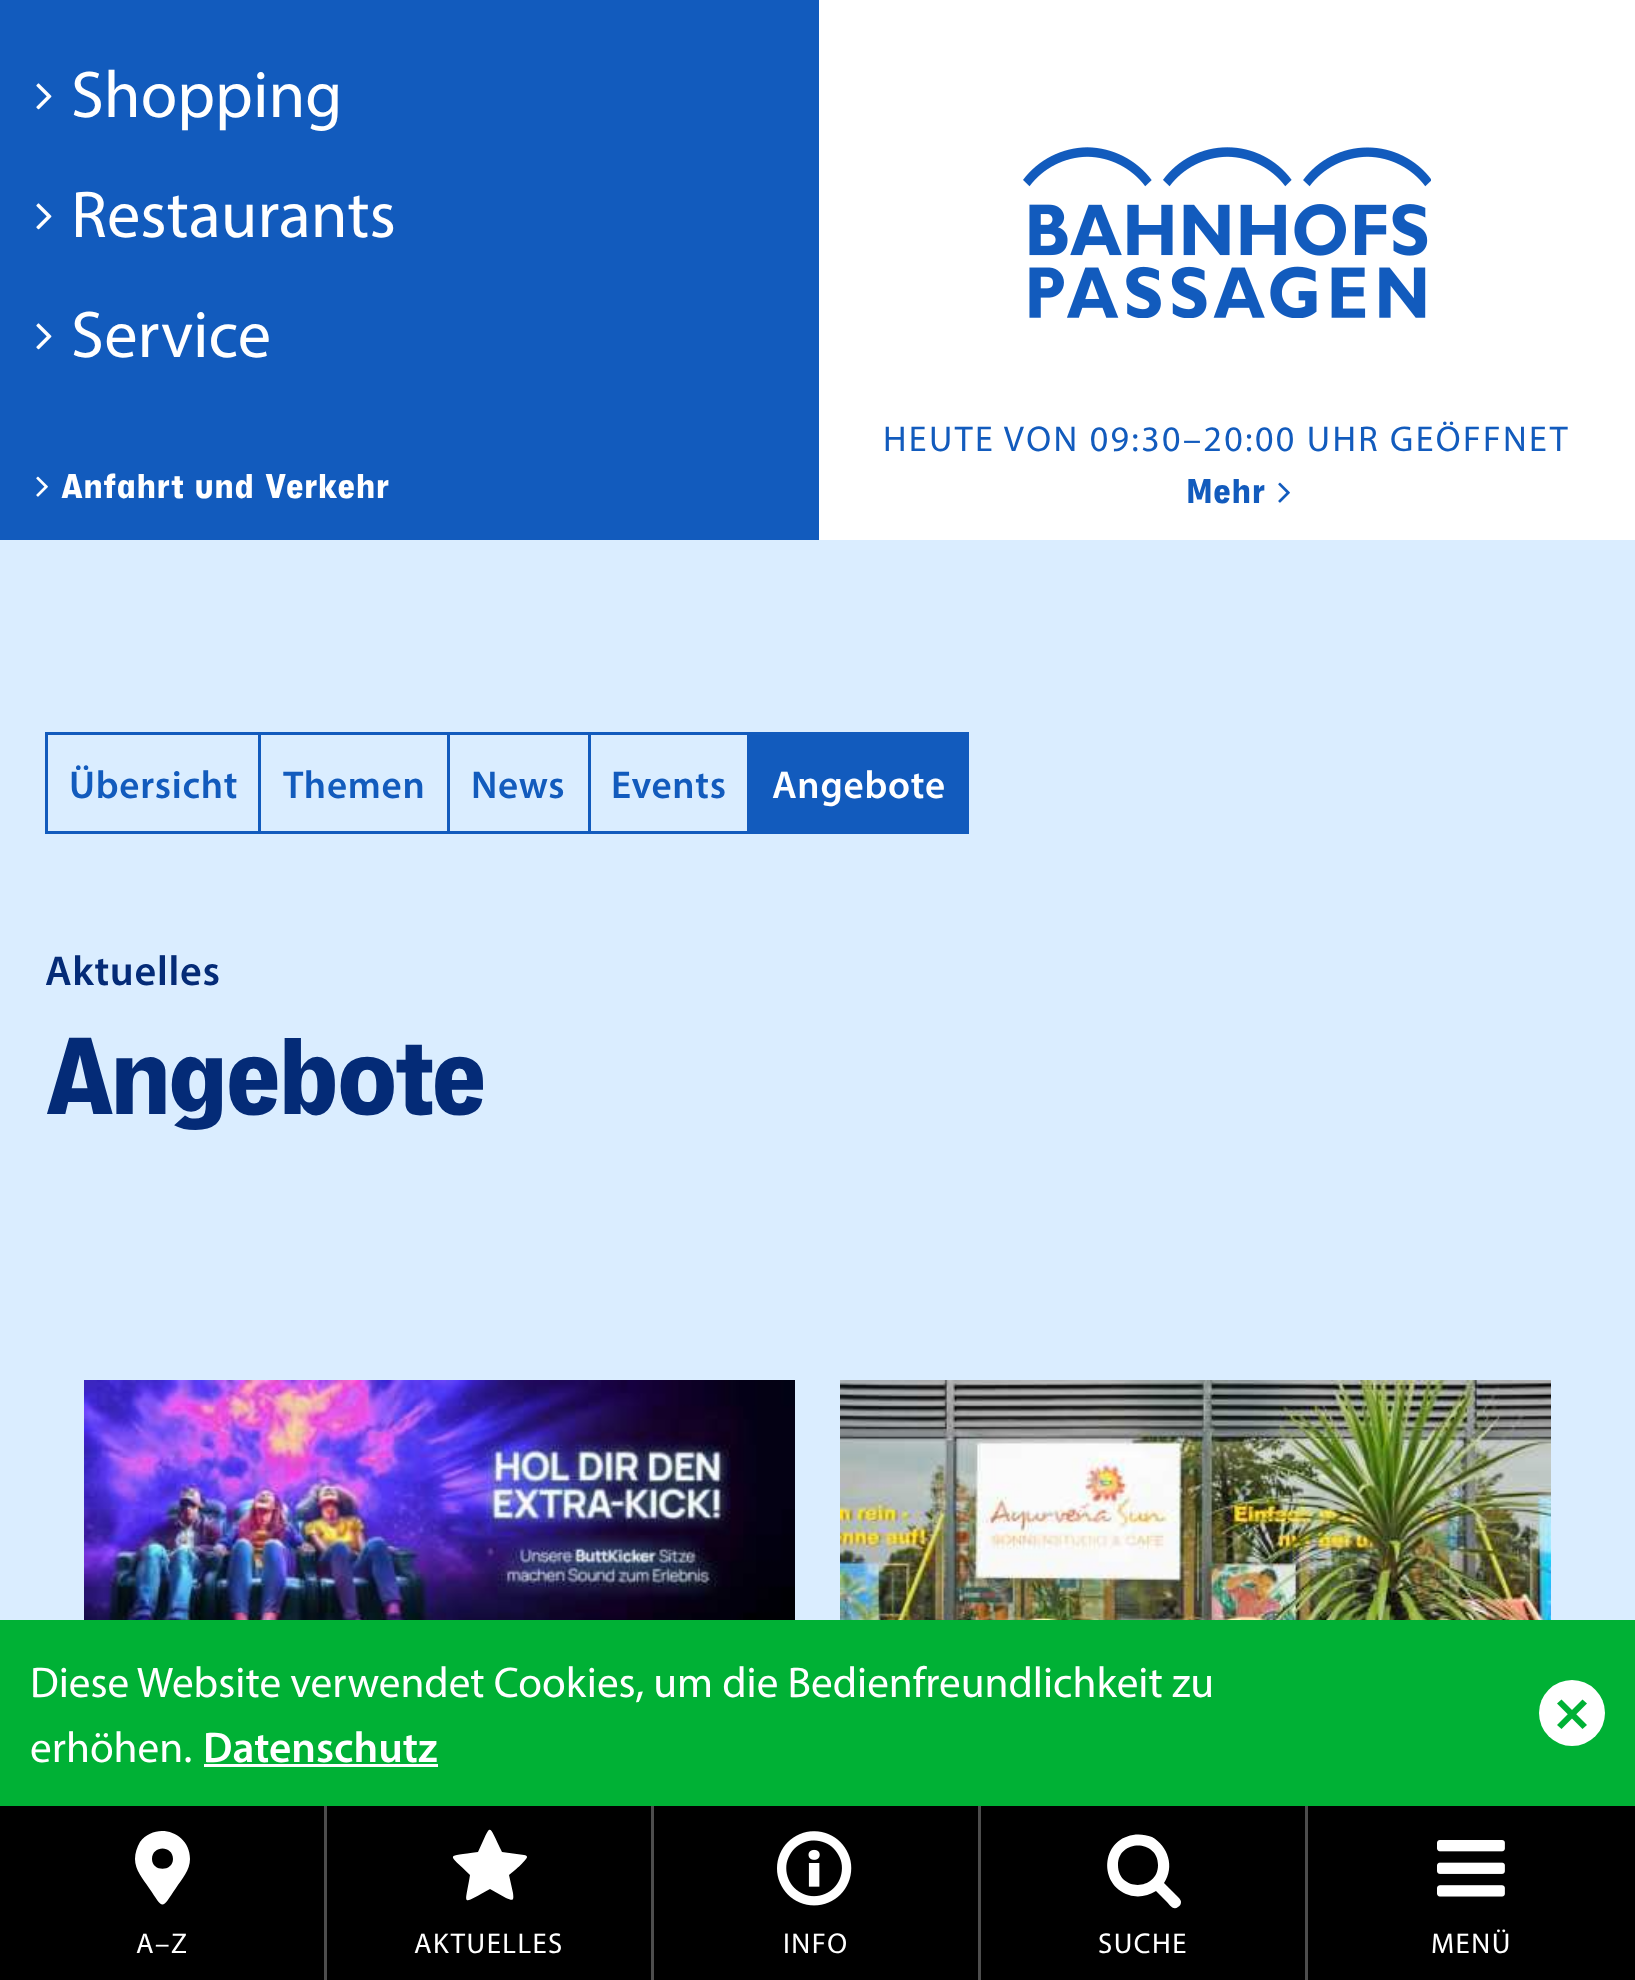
<!DOCTYPE html>
<meta charset="utf-8">
<style>body { margin: 0 } canvas { display: block }</style>
<canvas id="canvas" width="1635" height="1980"></canvas>
<script type="module">
  const canvas = document.getElementById("canvas");
  const g = canvas.getContext("2d");
  g.miterLimit = 4;
  g.fontKerning = "normal";
  function drawText(s, x, y, [font, color]) {
    g.font = font;
    g.fillStyle = color;
    g.fillText(s, x, y);
  }
  function fillBox(x, y, w, h, color) {
    g.fillStyle = color;
    g.fillRect(x, y, w, h);
  }
  async function drawPicture(src, x, y, w, h) {
    const img = new Image();
    img.src = src;
    await img.decode();
    g.drawImage(img, x, y, w, h);
  }

  const s1 = ["66.5px Myriad", "#FFFFFF"];
  const s2 = ["900 36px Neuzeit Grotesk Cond", "#FFFFFF"];
  const s3 = ["36px Myriad", "#125BBD"];
  const s4 = ["900 36px Neuzeit Grotesk Cond", "#125BBD"];
  const s5 = ["28.75px Myriad", "#FFFFFF"];
  const s6 = ["600 39px Myriad", "#125BBD"];
  const s7 = ["600 39px Myriad", "#FFFFFF"];
  const s8 = ["600 42px Myriad", "#042B77"];
  const s9 = ["900 114px Neuzeit Grotesk Cond", "#042B77"];
  const s10 = ["43.2px Myriad", "#FFFFFF"];
  const s11 = ["600 43.2px Myriad", "#FFFFFF"];

  fillBox(0, 0, 1635, 1980, "#DAEDFF");
  fillBox(0, 0, 819, 540, "#125BBD");
  fillBox(819, 0, 816, 540, "#FFFFFF");
  await drawPicture("pic1.png", 1023, 147, 408, 171);
  await drawPicture("pic2.png", 36, 83, 16, 27);
  drawText("Shopping", 71, 117, s1);
  await drawPicture("pic2.png", 36, 203, 16, 27);
  drawText("Restaurants", 71, 237, s1);
  await drawPicture("pic2.png", 36, 323, 16, 27);
  drawText("Service", 71, 357, s1);
  await drawPicture("pic3.png", 36, 476, 12, 21);
  drawText("Anfahrt und Verkehr", 61, 498, s2);
  g.letterSpacing = "2.4px";
  drawText("HEUTE VON 09:30–20:00 UHR GEÖFFNET", 883, 451, s3);
  g.letterSpacing = "0px";
  drawText("Mehr", 1186, 503, s4);
  await drawPicture("pic4.png", 1278, 482, 12, 21);
  fillBox(0, 1806, 1635, 174, "#000000");
  fillBox(324, 1806, 3, 174, "#4D4D4D");
  g.fillStyle = "#FFFFFF";
  g.beginPath();
  g.moveTo(135, 1859);
  g.bezierCurveTo(135, 1853, 137, 1847, 140, 1842);
  g.bezierCurveTo(156, 1821, 190, 1832, 190, 1859);
  g.bezierCurveTo(190, 1870, 182, 1879, 176, 1888);
  g.bezierCurveTo(161, 1910, 164, 1910, 149, 1888);
  g.bezierCurveTo(143, 1879, 135, 1870, 135, 1859);
  g.closePath();
  g.moveTo(152, 1859);
  g.bezierCurveTo(152, 1872, 173, 1872, 173, 1859);
  g.bezierCurveTo(173, 1845, 152, 1845, 152, 1859);
  g.closePath();
  g.fill();
  g.letterSpacing = "1.5px";
  drawText("A–Z", 136, 1953, s5);
  fillBox(651, 1806, 3, 174, "#4D4D4D");
  g.fillStyle = "#FFFFFF";
  g.beginPath();
  g.moveTo(527, 1857);
  g.bezierCurveTo(527, 1860, 512, 1873, 509, 1875);
  g.lineTo(513, 1893);
  g.bezierCurveTo(514, 1901, 513, 1901, 506, 1898);
  g.lineTo(490, 1889);
  g.bezierCurveTo(460, 1905, 465, 1907, 470, 1875);
  g.bezierCurveTo(447, 1852, 445, 1857, 478, 1852);
  g.bezierCurveTo(492, 1823, 487, 1822, 502, 1852);
  g.lineTo(524, 1855);
  g.bezierCurveTo(526, 1855, 527, 1856, 527, 1857);
  g.closePath();
  g.fill();
  drawText("AKTUELLES", 414, 1953, s5);
  fillBox(978, 1806, 3, 174, "#4D4D4D");
  await drawPicture("pic5.png", 777, 1831, 75, 75);
  drawText("INFO", 783, 1953, s5);
  fillBox(1305, 1806, 3, 174, "#4D4D4D");
  g.fillStyle = "#FFFFFF";
  g.beginPath();
  g.moveTo(1158, 1865);
  g.bezierCurveTo(1158, 1839, 1118, 1839, 1118, 1865);
  g.bezierCurveTo(1118, 1892, 1158, 1891, 1158, 1865);
  g.closePath();
  g.moveTo(1181, 1902);
  g.bezierCurveTo(1181, 1904, 1180, 1906, 1178, 1907);
  g.bezierCurveTo(1173, 1911, 1169, 1904, 1166, 1901);
  g.lineTo(1156, 1891);
  g.bezierCurveTo(1148, 1896, 1138, 1898, 1129, 1895);
  g.bezierCurveTo(1098, 1885, 1101, 1840, 1133, 1835);
  g.bezierCurveTo(1140, 1834, 1146, 1835, 1152, 1837);
  g.bezierCurveTo(1168, 1846, 1175, 1867, 1164, 1883);
  g.lineTo(1179, 1898);
  g.bezierCurveTo(1180, 1899, 1181, 1901, 1181, 1902);
  g.closePath();
  g.fill();
  drawText("SUCHE", 1098, 1953, s5);
  await drawPicture("pic6.png", 1437, 1840, 68, 57);
  drawText("MENÜ", 1431, 1953, s5);
  g.strokeStyle = "#125BBD";
  g.lineWidth = 3;
  g.strokeRect(46.5, 733.5, 213, 99);
  g.letterSpacing = "0.75px";
  drawText("Übersicht", 69, 798, s6);
  fillBox(261, 732, 489, 3, "#125BBD");
  fillBox(447, 732, 3, 102, "#125BBD");
  fillBox(261, 831, 189, 3, "#125BBD");
  drawText("Themen", 283, 798, s6);
  fillBox(588, 732, 3, 102, "#125BBD");
  fillBox(450, 831, 141, 3, "#125BBD");
  drawText("News", 471, 798, s6);
  fillBox(747, 732, 222, 102, "#125BBD");
  fillBox(591, 831, 159, 3, "#125BBD");
  drawText("Events", 611, 798, s6);
  drawText("Angebote", 772, 798, s7);
  drawText("Aktuelles", 45, 985, s8);
  g.letterSpacing = "-5.75px";
  drawText("Angebote", 45, 1114, s9);
  await drawPicture("pic7.png", 84, 1380, 711, 240);
  await drawPicture("pic8.png", 840, 1380, 711, 240);
  fillBox(0, 1620, 1635, 186, "#00B135");
  g.letterSpacing = "0px";
  drawText("Diese Website verwendet Cookies, um die Bedienfreundlichkeit zu", 30, 1697, s10);
  g.beginPath();
  g.arc(1572, 1713, 33, 0, Math.PI * 2);
  g.fill();
  g.fillStyle = "#00B135";
  g.beginPath();
  g.moveTo(1561.5, 1699.5);
  g.lineTo(1587, 1725);
  g.lineTo(1582.5, 1729);
  g.lineTo(1557, 1703.5);
  g.closePath();
  g.fill();
  g.beginPath();
  g.moveTo(1557, 1725);
  g.lineTo(1582.5, 1699.5);
  g.lineTo(1587, 1703.5);
  g.lineTo(1561.5, 1729);
  g.closePath();
  g.fill();
  drawText("erhöhen.", 30, 1762, s10);
  drawText("Datenschutz", 203, 1762, s11);
  fillBox(204, 1764, 234, 3, "#FFFFFF");
</script>
